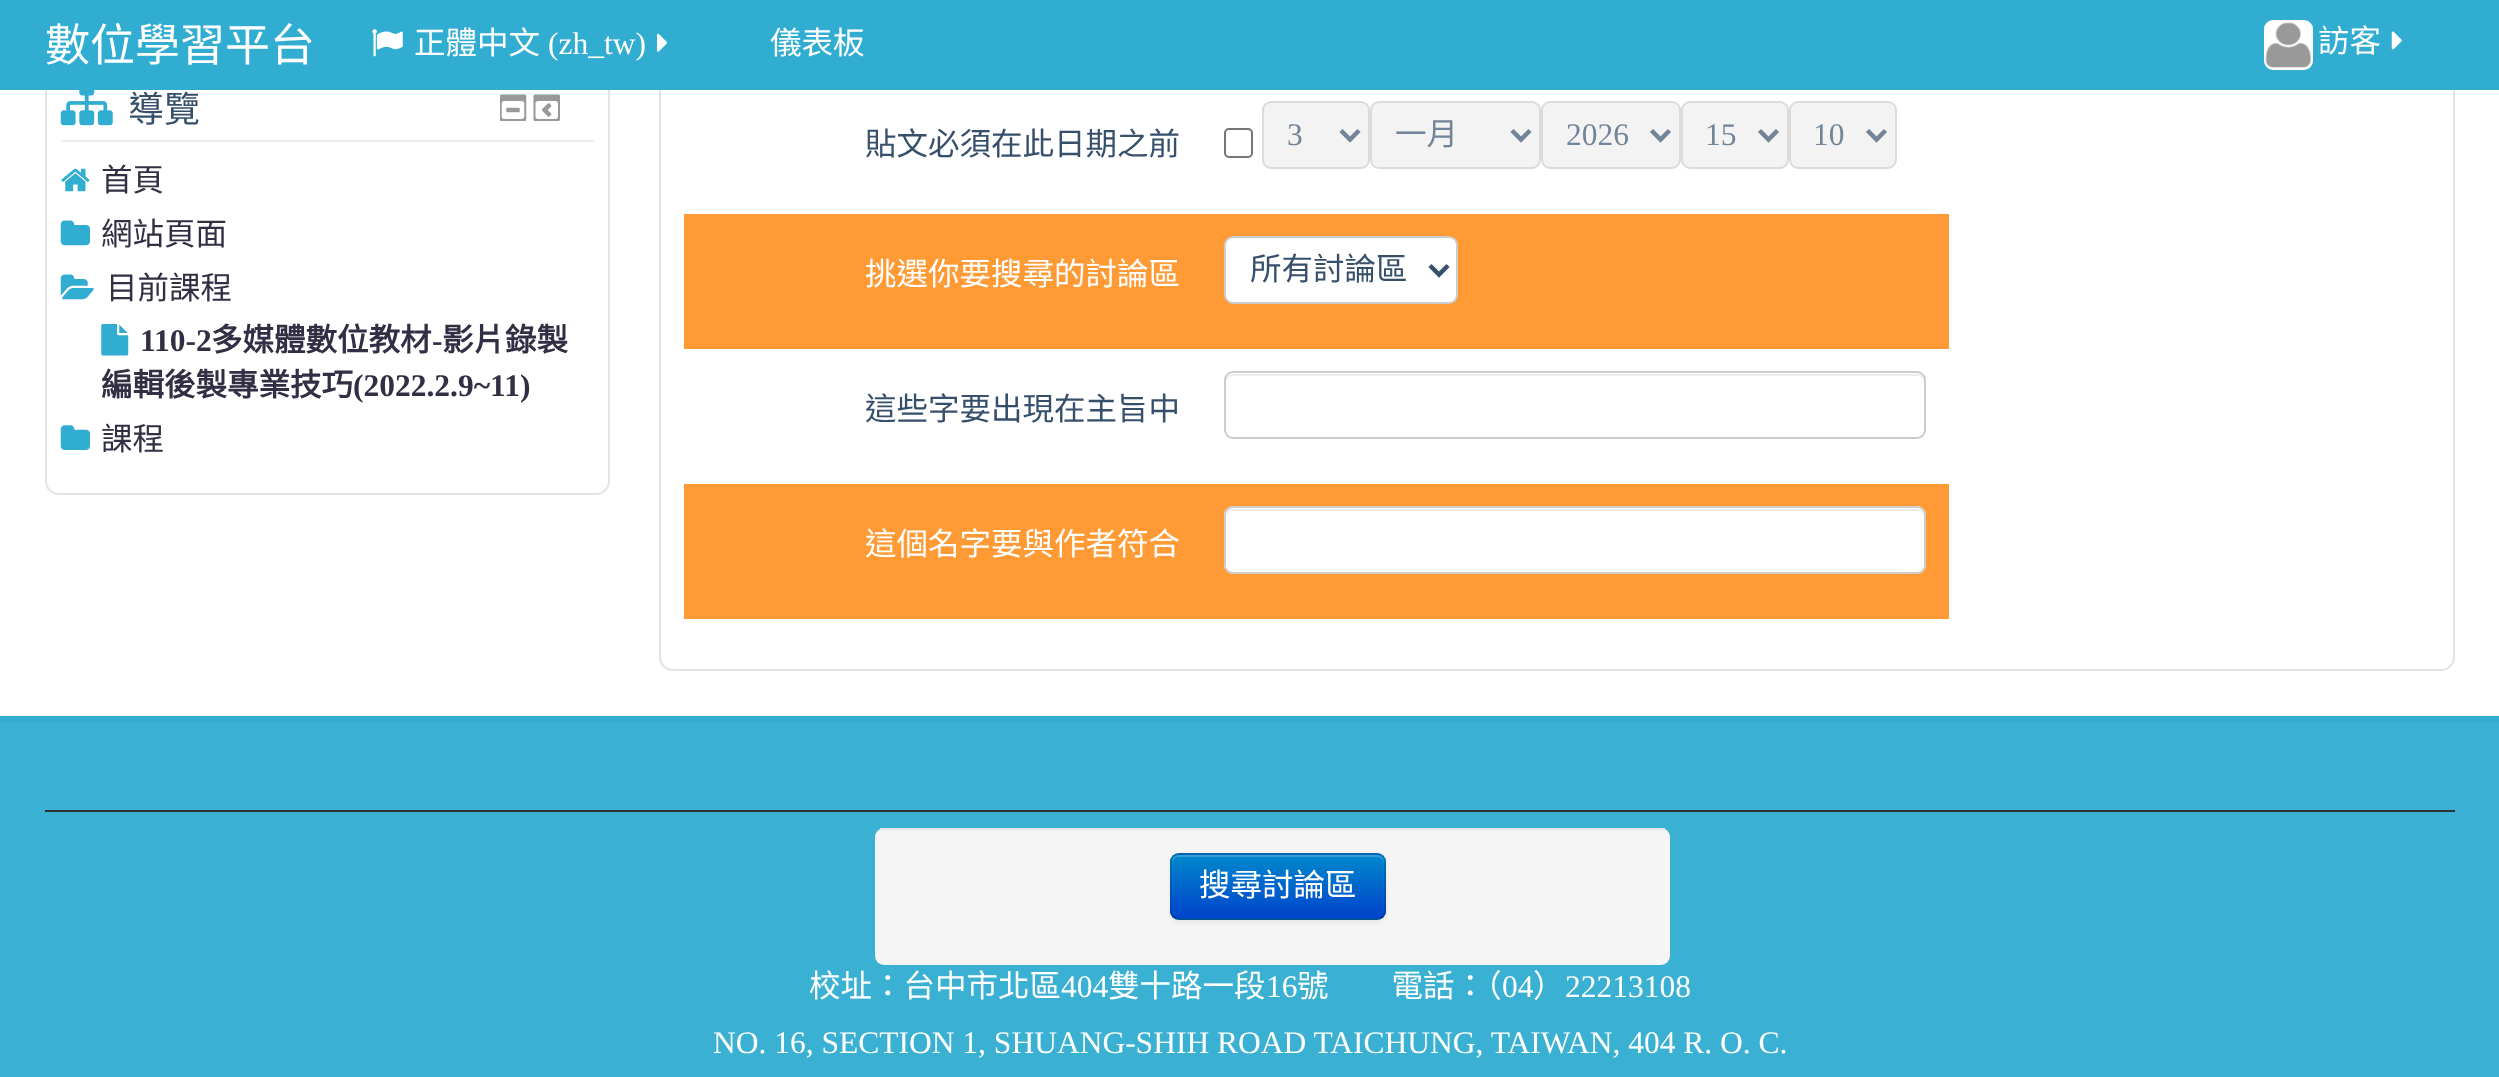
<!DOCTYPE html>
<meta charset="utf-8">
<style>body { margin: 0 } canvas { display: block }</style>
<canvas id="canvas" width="2499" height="1077"></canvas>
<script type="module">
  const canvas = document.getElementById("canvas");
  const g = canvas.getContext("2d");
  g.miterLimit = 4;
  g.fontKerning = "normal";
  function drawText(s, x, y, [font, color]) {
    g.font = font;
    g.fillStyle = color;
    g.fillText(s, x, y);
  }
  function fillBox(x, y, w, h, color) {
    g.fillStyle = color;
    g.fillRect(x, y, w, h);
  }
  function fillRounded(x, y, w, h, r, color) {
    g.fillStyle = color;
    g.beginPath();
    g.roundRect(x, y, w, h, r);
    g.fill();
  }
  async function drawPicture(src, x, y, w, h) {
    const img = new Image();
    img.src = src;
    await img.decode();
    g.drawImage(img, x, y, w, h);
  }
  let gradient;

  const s1 = ["45px Noto Sans CJK TC", "#FFFFFF"];
  const s2 = ["31.5px Noto Sans CJK TC", "#FFFFFF"];
  const s3 = ["31.5px Liberation Serif", "#FFFFFF"];
  const s4 = ["36px Noto Sans CJK TC", "#364F6B"];
  const s5 = ["31.5px Noto Sans CJK TC", "#312F44"];
  const s6 = ["bold 31.5px Liberation Serif", "#312F44"];
  const s7 = ["bold 31.5px Noto Sans CJK TC", "#312F44"];
  const s8 = ["31.5px Noto Sans CJK TC", "#364F6B"];
  const s9 = ["31.5px Liberation Serif", "#728497"];
  const s10 = ["31.5px Noto Sans CJK TC", "#728497"];

  fillBox(0, 0, 2499, 1077, "#FFFFFF");
  g.beginPath();
  g.roundRect(46, 62, 563, 432, 13);
  g.strokeStyle = "#E3E3E3";
  g.lineWidth = 2;
  g.stroke();
  g.beginPath();
  g.roundRect(660, -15, 1794, 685, 13);
  g.stroke();
  fillBox(0, 0, 2499, 90, "#30ADD1");
  drawText("數位學習平台", 45, 61, s1);
  await drawPicture("pic1.png", 372, 29, 31, 28);
  drawText("正體中文", 414, 54, s2);
  drawText("(zh_tw)", 548, 54, s3);
  await drawPicture("pic2.png", 657, 33, 11, 19);
  drawText("儀表板", 770, 54, s2);
  g.beginPath();
  g.roundRect(2265, 21, 47, 48, 8);
  g.fill();
  g.strokeStyle = "#FFFFFF";
  g.stroke();
  await drawPicture("pic3.png", 2265, 22, 46, 46);
  drawText("訪客", 2318, 52, s2);
  await drawPicture("pic4.png", 2391, 31, 11, 19);
  fillBox(61, 140, 533, 2, "#EEEEEE");
  await drawPicture("pic5.png", 60, 90, 53, 36);
  drawText("導覽", 128, 122, s4);
  await drawPicture("pic6.png", 500, 94, 27, 27);
  await drawPicture("pic7.png", 533, 94, 27, 27);
  await drawPicture("pic8.png", 61, 168, 29, 24);
  drawText("首頁", 101, 191, s5);
  await drawPicture("pic9.png", 60, 220, 30, 26);
  drawText("網站頁面", 101, 245, s5);
  await drawPicture("pic10.png", 60, 274, 34, 26);
  drawText("目前課程", 106, 299, s5);
  await drawPicture("pic11.png", 101, 324, 28, 32);
  drawText("110-2", 140, 351, s6);
  drawText("多媒體數位教材", 211, 351, s7);
  drawText("-", 432, 351, s6);
  drawText("影片錄製", 442, 351, s7);
  drawText("編輯後製專業技巧", 101, 396, s7);
  drawText("(2022.2.9~11)", 353, 396, s6);
  await drawPicture("pic12.png", 60, 425, 30, 25);
  drawText("課程", 101, 450, s5);
  drawText("貼文必須在此日期之前", 865, 155, s8);
  g.beginPath();
  g.roundRect(1225, 129, 27, 28, 4);
  g.strokeStyle = "#767676";
  g.stroke();
  g.fillStyle = "#F3F3F3";
  g.beginPath();
  g.roundRect(1263, 102, 106, 66, 8);
  g.fill();
  g.strokeStyle = "#DBDBDB";
  g.stroke();
  g.beginPath();
  g.moveTo(1341, 130.5);
  g.lineTo(1350, 139.5);
  g.lineTo(1359, 130.5);
  g.strokeStyle = "#728497";
  g.lineWidth = 4.5;
  g.stroke();
  drawText("3", 1287, 145, s9);
  g.fillStyle = "#F3F3F3";
  g.beginPath();
  g.roundRect(1371, 102, 169, 66, 8);
  g.fill();
  g.strokeStyle = "#DBDBDB";
  g.lineWidth = 2;
  g.stroke();
  g.beginPath();
  g.moveTo(1512, 130.5);
  g.lineTo(1521, 139.5);
  g.lineTo(1530, 130.5);
  g.strokeStyle = "#728497";
  g.lineWidth = 4.5;
  g.stroke();
  drawText("一月", 1395, 145, s10);
  g.fillStyle = "#F3F3F3";
  g.beginPath();
  g.roundRect(1542, 102, 138, 66, 8);
  g.fill();
  g.strokeStyle = "#DBDBDB";
  g.lineWidth = 2;
  g.stroke();
  g.beginPath();
  g.moveTo(1651.5, 130.5);
  g.lineTo(1660.5, 139.5);
  g.lineTo(1669.5, 130.5);
  g.strokeStyle = "#728497";
  g.lineWidth = 4.5;
  g.stroke();
  drawText("2026", 1566, 145, s9);
  g.fillStyle = "#F3F3F3";
  g.beginPath();
  g.roundRect(1682, 102, 106, 66, 8);
  g.fill();
  g.strokeStyle = "#DBDBDB";
  g.lineWidth = 2;
  g.stroke();
  g.beginPath();
  g.moveTo(1759.5, 130.5);
  g.lineTo(1768.5, 139.5);
  g.lineTo(1777.5, 130.5);
  g.strokeStyle = "#728497";
  g.lineWidth = 4.5;
  g.stroke();
  drawText("15", 1705, 145, s9);
  g.fillStyle = "#F3F3F3";
  g.beginPath();
  g.roundRect(1790, 102, 106, 66, 8);
  g.fill();
  g.strokeStyle = "#DBDBDB";
  g.lineWidth = 2;
  g.stroke();
  g.beginPath();
  g.moveTo(1867.5, 130.5);
  g.lineTo(1876.5, 139.5);
  g.lineTo(1885.5, 130.5);
  g.strokeStyle = "#728497";
  g.lineWidth = 4.5;
  g.stroke();
  drawText("10", 1813, 145, s9);
  fillBox(684, 214, 1265, 135, "#FF9A34");
  drawText("挑選你要搜尋的討論區", 865, 285, s2);
  g.beginPath();
  g.roundRect(1225, 237, 232, 66, 8);
  g.fill();
  g.strokeStyle = "#CCCCCC";
  g.lineWidth = 2;
  g.stroke();
  g.beginPath();
  g.moveTo(1430, 265.5);
  g.lineTo(1439, 274.5);
  g.lineTo(1448, 265.5);
  g.strokeStyle = "#364F6B";
  g.lineWidth = 4.5;
  g.stroke();
  drawText("所有討論區", 1250, 280, s8);
  drawText("這些字要出現在主旨中", 865, 420, s8);
  g.fillStyle = "#ECECEC";
  g.beginPath();
  g.moveTo(1233, 376);
  g.lineTo(1917, 376);
  g.bezierCurveTo(1921, 376, 1924, 379, 1924, 382);
  g.bezierCurveTo(1924, 378, 1922, 374, 1917, 374);
  g.lineTo(1233, 374);
  g.bezierCurveTo(1228, 374, 1226, 378, 1226, 382);
  g.bezierCurveTo(1226, 379, 1229, 376, 1233, 376);
  g.closePath();
  g.fill();
  g.beginPath();
  g.roundRect(1225, 372, 700, 66, 8);
  g.strokeStyle = "#CCCCCC";
  g.lineWidth = 2;
  g.stroke();
  fillBox(684, 484, 1265, 135, "#FF9A34");
  drawText("這個名字要與作者符合", 865, 555, s2);
  fillRounded(1224, 506, 702, 68, 9, "#FFFFFF");
  g.fillStyle = "#ECECEC";
  g.beginPath();
  g.moveTo(1233, 511);
  g.lineTo(1917, 511);
  g.bezierCurveTo(1921, 511, 1924, 514, 1924, 518);
  g.bezierCurveTo(1924, 514, 1922, 509, 1917, 509);
  g.lineTo(1233, 509);
  g.bezierCurveTo(1228, 509, 1226, 514, 1226, 518);
  g.bezierCurveTo(1226, 514, 1229, 511, 1233, 511);
  g.closePath();
  g.fill();
  g.beginPath();
  g.roundRect(1225, 507, 700, 66, 8);
  g.stroke();
  fillBox(0, 721, 2499, 356, "#3AB1D3");
  fillRounded(875, 828, 795, 137, 9, "#F5F5F5");
  fillBox(880, 828, 785, 2, "#E5E5E5");
  g.fillStyle = "rgba(0, 0, 0, 0.05)";
  g.filter = "blur(2px)";
  g.beginPath();
  g.roundRect(1170, 855, 216, 68, 9);
  g.fill();
  g.filter = "none";
  fillRounded(1170, 853, 216, 67, 9, "#006DCC");
  g.save();
  g.beginPath();
  g.roundRect(1170, 853, 216, 67, 9);
  g.clip();
  gradient = g.createLinearGradient(1278, 855, 1278, 918);
  gradient.addColorStop(0, "#0088CC");
  gradient.addColorStop(1, "#0044CC");
  g.fillStyle = gradient;
  g.fillRect(1170, 855, 216, 63);
  g.restore();
  g.fillStyle = "rgba(255, 255, 255, 0.2)";
  g.beginPath();
  g.moveTo(1179, 857);
  g.lineTo(1377, 857);
  g.bezierCurveTo(1381, 857, 1384, 860, 1384, 864);
  g.lineTo(1384, 862);
  g.bezierCurveTo(1384, 858, 1381, 855, 1377, 855);
  g.lineTo(1179, 855);
  g.bezierCurveTo(1175, 855, 1172, 858, 1172, 862);
  g.lineTo(1172, 864);
  g.bezierCurveTo(1172, 860, 1175, 857, 1179, 857);
  g.closePath();
  g.fill();
  g.beginPath();
  g.moveTo(1382.5, 917);
  g.bezierCurveTo(1381, 918.5, 1379, 919, 1377, 919);
  g.lineTo(1179, 919);
  g.bezierCurveTo(1177, 919, 1175, 918.5, 1173.5, 917);
  g.strokeStyle = "rgba(0, 0, 0, 0.25)";
  g.lineWidth = 2.2;
  g.stroke();
  g.beginPath();
  g.moveTo(1173.5, 917);
  g.bezierCurveTo(1172, 915.5, 1171, 913.5, 1171, 911);
  g.lineTo(1171, 862);
  g.bezierCurveTo(1171, 859.5, 1172, 857.5, 1173.5, 856);
  g.bezierCurveTo(1175, 854.5, 1177, 854, 1179, 854);
  g.lineTo(1377, 854);
  g.bezierCurveTo(1379, 854, 1381, 854.5, 1382.5, 856);
  g.bezierCurveTo(1384, 857.5, 1385, 859.5, 1385, 862);
  g.lineTo(1385, 911);
  g.bezierCurveTo(1385, 913.5, 1384, 915.5, 1382.5, 917);
  g.strokeStyle = "rgba(0, 0, 0, 0.1)";
  g.stroke();
  drawText("搜尋討論區", 1199, 896, s2);
  fillBox(0, 716, 2499, 5, "#30ADD1");
  fillBox(45, 810, 2410, 2, "#313131");
  drawText("校址：台中市北區", 809, 997, s2);
  drawText("404", 1061, 997, s3);
  drawText("雙十路一段", 1108, 997, s2);
  drawText("16", 1266, 997, s3);
  drawText("號　　電話：（", 1297, 997, s2);
  drawText("04", 1502, 997, s3);
  drawText("）", 1533, 997, s2);
  drawText("22213108", 1565, 997, s3);
  drawText("NO. 16, SECTION 1, SHUANG-SHIH ROAD TAICHUNG, TAIWAN, 404 R. O. C.", 713, 1053, s3);
</script>
